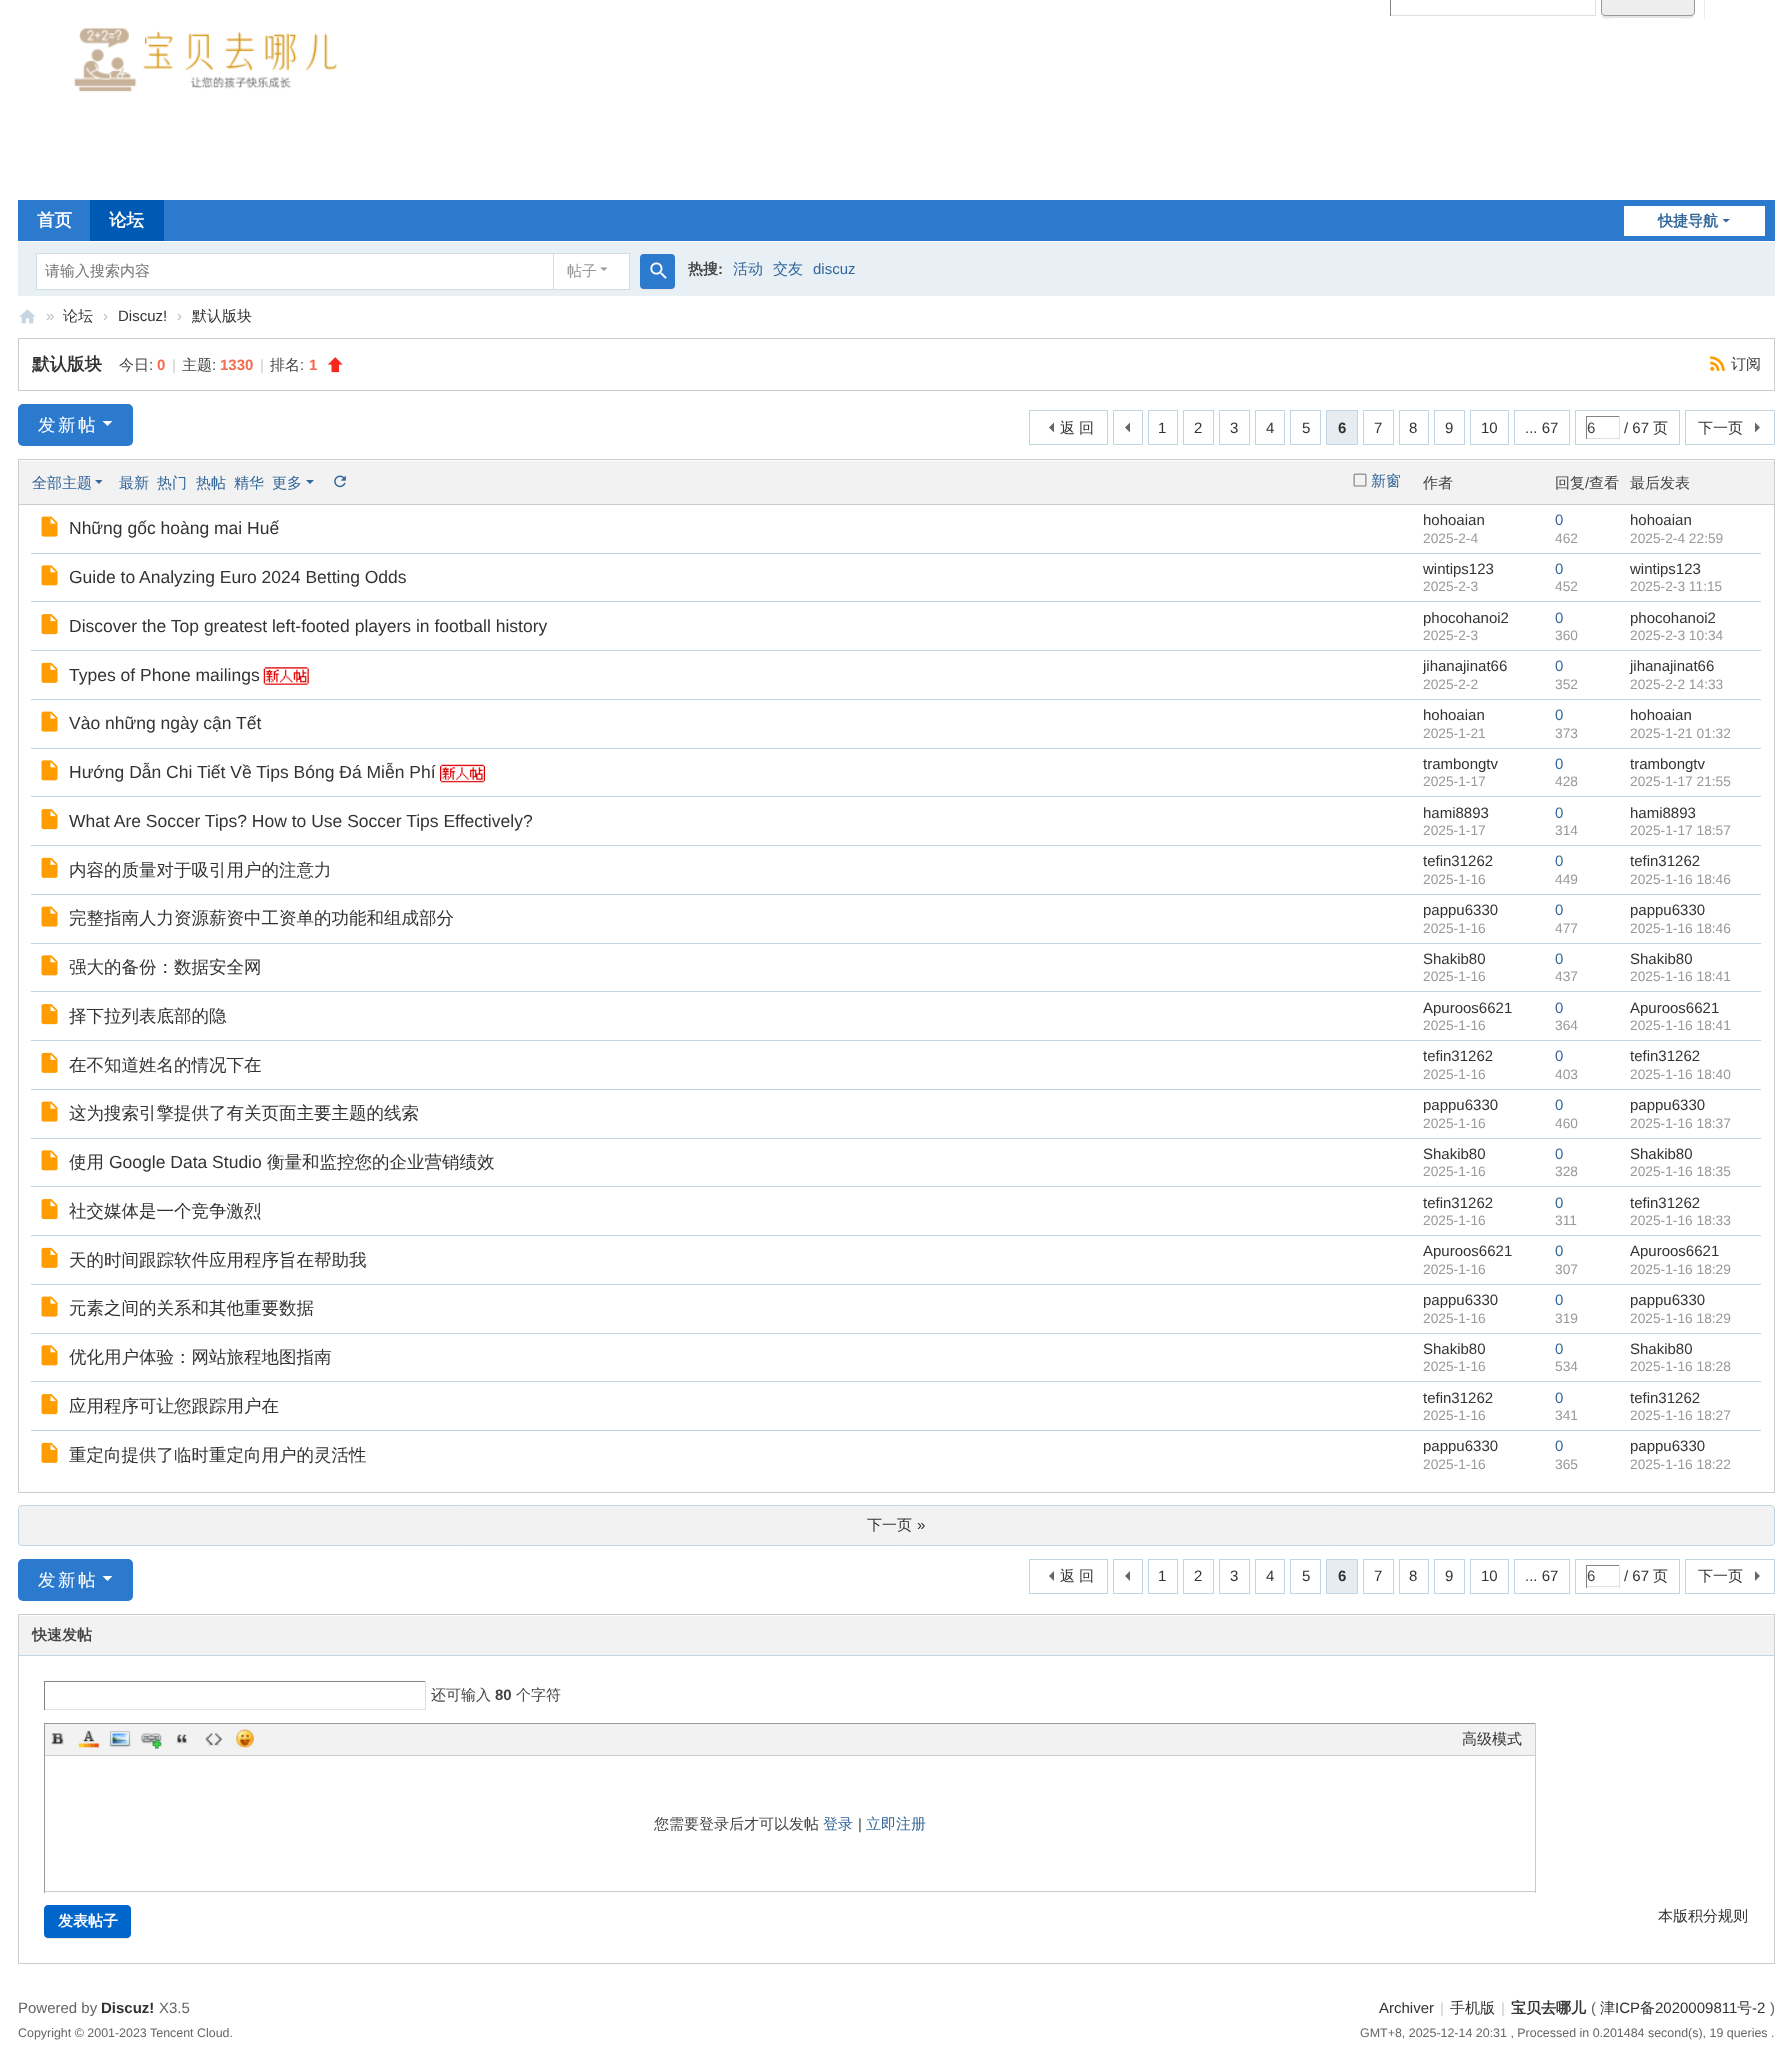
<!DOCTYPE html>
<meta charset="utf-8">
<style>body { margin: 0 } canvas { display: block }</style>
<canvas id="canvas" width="1792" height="2072"></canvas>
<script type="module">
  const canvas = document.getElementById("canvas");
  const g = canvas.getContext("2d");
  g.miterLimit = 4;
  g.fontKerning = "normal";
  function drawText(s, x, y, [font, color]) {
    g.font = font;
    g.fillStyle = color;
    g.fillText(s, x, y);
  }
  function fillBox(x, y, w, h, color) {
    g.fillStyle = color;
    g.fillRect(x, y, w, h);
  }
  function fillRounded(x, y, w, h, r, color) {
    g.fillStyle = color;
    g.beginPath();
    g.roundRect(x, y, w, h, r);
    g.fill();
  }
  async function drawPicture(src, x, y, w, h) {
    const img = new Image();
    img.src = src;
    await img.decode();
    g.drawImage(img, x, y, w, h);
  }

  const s1 = ["bold 17.5px WenQuanYi Zen Hei", "#FFFFFF"];
  const s2 = ["bold 15px WenQuanYi Zen Hei", "#336699"];
  const s3 = ["500 15px WenQuanYi Zen Hei", "#757575"];
  const s4 = ["500 15px WenQuanYi Zen Hei", "#999999"];
  const s5 = ["bold 15px WenQuanYi Zen Hei", "#444444"];
  const s6 = ["bold 15px Liberation Sans", "#444444"];
  const s7 = ["500 15px WenQuanYi Zen Hei", "#336699"];
  const s8 = ["15px Liberation Sans", "#336699"];
  const s9 = ["15px Liberation Sans", "#BDBDBD"];
  const s10 = ["500 15px WenQuanYi Zen Hei", "#333333"];
  const s11 = ["15px Liberation Sans", "#333333"];
  const s12 = ["bold 17.5px WenQuanYi Zen Hei", "#333333"];
  const s13 = ["500 15px WenQuanYi Zen Hei", "#444444"];
  const s14 = ["15px Liberation Sans", "#444444"];
  const s15 = ["bold 15px Liberation Sans", "#F26C4F"];
  const s16 = ["15px Liberation Sans", "#CCCCCC"];
  const s17 = ["500 17.5px WenQuanYi Zen Hei", "#FFFFFF"];
  const s18 = ["bold 15px Liberation Sans", "#333333"];
  const s19 = ["13.75px Liberation Sans", "#999999"];
  const s20 = ["17.5px Liberation Sans", "#333333"];
  const s21 = ["500 17.5px WenQuanYi Zen Hei", "#333333"];
  const s22 = ["bold 15px WenQuanYi Zen Hei", "#FFFFFF"];
  const s23 = ["15px Liberation Sans", "#666666"];
  const s24 = ["12.45px Liberation Sans", "#666666"];
  const s25 = ["bold 15px WenQuanYi Zen Hei", "#333333"];

  fillBox(0, 0, 1792, 2072, "#FFFFFF");
  fillBox(1595, 0, 1, 16, "#E0E0E0");
  fillBox(1390, 15, 206, 1, "#E0E0E0");
  fillBox(1390, 0, 1, 16, "#848484");
  fillBox(1704, 0, 1, 19, "#E5EDF2");
  g.fillStyle = "#E5E5E5";
  g.beginPath();
  g.moveTo(1601, -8);
  g.lineTo(1601, 7);
  g.bezierCurveTo(1601, 22, 1602, 18, 1619, 18);
  g.lineTo(1677, 18);
  g.bezierCurveTo(1679, 18, 1692, 20, 1694, 16);
  g.lineTo(1695, 12);
  g.bezierCurveTo(1695, 15, 1693, 16, 1691, 16);
  g.lineTo(1605, 16);
  g.bezierCurveTo(1603, 16, 1601, 15, 1601, 12);
  g.closePath();
  g.fill();
  g.fillStyle = "#EEEEEE";
  g.beginPath();
  g.roundRect(1601.5, -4.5, 93, 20, 3.5);
  g.fill();
  g.strokeStyle = "#999999";
  g.stroke();
  await drawPicture("pic1.png", 74, 28, 264, 64);
  fillBox(18, 200, 1757, 41, "#2B7ACD");
  drawText("首页", 37, 226, s1);
  fillBox(90, 200, 74, 41, "#005AB4");
  drawText("论坛", 109, 226, s1);
  fillBox(1624, 206, 141, 30, "#FFFFFF");
  drawText("快捷导航", 1658, 226, s2);
  g.beginPath();
  g.moveTo(1722.5, 219);
  g.lineTo(1730, 219);
  g.lineTo(1726, 222.5);
  g.closePath();
  g.fill();
  fillBox(18, 242, 1757, 54, "#E8EFF5");
  fillBox(551, 253, 79, 1, "#CFDEE3");
  fillBox(629, 253, 1, 37, "#CFDEE3");
  fillBox(551, 289, 79, 1, "#CFDEE3");
  g.fillStyle = "#FFFFFF";
  g.beginPath();
  g.rect(36.5, 253.5, 517, 36);
  g.fill();
  g.strokeStyle = "#CFDEE3";
  g.stroke();
  drawText("请输入搜索内容", 45, 276, s3);
  fillBox(554, 254, 75, 35, "#FFFFFF");
  drawText("帖子", 567, 276, s4);
  g.beginPath();
  g.moveTo(600, 267.5);
  g.lineTo(607.5, 267.5);
  g.lineTo(604, 271);
  g.closePath();
  g.fill();
  g.fillStyle = "#E5E5E5";
  g.beginPath();
  g.moveTo(640, 285);
  g.bezierCurveTo(640, 290.5, 644, 290, 648.5, 290);
  g.lineTo(666.5, 290);
  g.bezierCurveTo(671, 290, 675, 290.5, 675, 285);
  g.bezierCurveTo(675, 287, 673.5, 289, 671, 289);
  g.lineTo(644, 289);
  g.bezierCurveTo(641.5, 289, 640, 287, 640, 285);
  g.closePath();
  g.fill();
  fillRounded(640, 254, 35, 35, 4, "#2B7ACD");
  await drawPicture("pic2.png", 650, 262, 17, 17);
  drawText("热搜", 688, 274, s5);
  drawText(":", 718, 274, s6);
  drawText("活动", 733, 274, s7);
  drawText("交友", 773, 274, s7);
  drawText("discuz", 813, 274, s8);
  await drawPicture("pic3.png", 19, 309, 17, 15);
  drawText("»", 46, 321, s9);
  drawText("论坛", 63, 321, s10);
  drawText("›", 103, 321, s9);
  drawText("Discuz!", 118, 321, s11);
  drawText("›", 177, 321, s9);
  drawText("默认版块", 192, 321, s10);
  g.strokeStyle = "#CDCDCD";
  g.strokeRect(18.5, 338.5, 1756, 52);
  drawText("默认版块", 32, 370, s12);
  drawText("今日", 119, 370, s13);
  drawText(":", 149, 370, s14);
  drawText("0", 157, 370, s15);
  drawText("|", 172, 370, s16);
  drawText("主题", 182, 370, s13);
  drawText(":", 212, 370, s14);
  drawText("1330", 220, 370, s15);
  drawText("|", 260, 370, s16);
  drawText("排名", 270, 370, s13);
  drawText(":", 300, 370, s14);
  drawText("1", 309, 370, s15);
  await drawPicture("pic4.png", 328, 357, 15, 16);
  await drawPicture("pic5.png", 1710, 356, 15, 15);
  drawText("订阅", 1731, 369, s10);
  fillRounded(18, 404, 115, 42, 5, "#2B7ACD");
  g.letterSpacing = "2.5px";
  drawText("发新帖", 38, 431, s17);
  g.beginPath();
  g.moveTo(102.5, 421);
  g.lineTo(112.5, 421);
  g.lineTo(107.5, 426);
  g.closePath();
  g.fill();
  g.strokeStyle = "#C2D5E3";
  g.strokeRect(1029.5, 410.5, 78, 34);
  g.fillStyle = "#666666";
  g.beginPath();
  g.moveTo(1054, 422.5);
  g.lineTo(1054, 432.5);
  g.lineTo(1049, 427.5);
  g.closePath();
  g.fill();
  g.letterSpacing = "0px";
  drawText("返", 1060, 433, s10);
  drawText("回", 1079, 433, s10);
  g.strokeRect(1113.5, 410.5, 29, 34);
  g.fillStyle = "#666666";
  g.beginPath();
  g.moveTo(1130, 422.5);
  g.lineTo(1130, 432.5);
  g.lineTo(1125, 427.5);
  g.closePath();
  g.fill();
  g.strokeRect(1148.5, 410.5, 29, 34);
  drawText("1", 1158, 433, s11);
  g.strokeRect(1183.5, 410.5, 30, 34);
  drawText("2", 1194, 433, s11);
  g.strokeRect(1219.5, 410.5, 30, 34);
  drawText("3", 1230, 433, s11);
  g.strokeRect(1255.5, 410.5, 29, 34);
  drawText("4", 1266, 433, s11);
  g.strokeRect(1290.5, 410.5, 30, 34);
  drawText("5", 1302, 433, s11);
  g.fillStyle = "#E5EDF2";
  g.beginPath();
  g.rect(1326.5, 410.5, 31, 34);
  g.fill();
  g.stroke();
  drawText("6", 1338, 433, s18);
  g.strokeRect(1363.5, 410.5, 30, 34);
  drawText("7", 1374, 433, s11);
  g.strokeRect(1399.5, 410.5, 29, 34);
  drawText("8", 1409, 433, s11);
  g.strokeRect(1434.5, 410.5, 30, 34);
  drawText("9", 1445, 433, s11);
  g.strokeRect(1470.5, 410.5, 38, 34);
  drawText("10", 1481, 433, s11);
  g.strokeRect(1514.5, 410.5, 55, 34);
  drawText("... 67", 1525, 433, s11);
  g.strokeRect(1575.5, 410.5, 104, 34);
  fillBox(1586, 416, 34, 1, "#848484");
  fillBox(1619, 416, 1, 23, "#E0E0E0");
  fillBox(1586, 438, 34, 1, "#E0E0E0");
  fillBox(1586, 416, 1, 23, "#848484");
  drawText("6", 1587, 433, s14);
  drawText("/ 67", 1624, 433, s11);
  drawText("页", 1653, 433, s10);
  g.strokeRect(1685.5, 410.5, 89, 34);
  drawText("下一页", 1698, 433, s10);
  g.fillStyle = "#666666";
  g.beginPath();
  g.moveTo(1755, 432.5);
  g.lineTo(1755, 422.5);
  g.lineTo(1760, 427.5);
  g.closePath();
  g.fill();
  g.strokeStyle = "#CDCDCD";
  g.strokeRect(18.5, 459.5, 1756, 1033);
  fillBox(19, 461, 1755, 43, "#F2F2F2");
  fillBox(19, 504, 1755, 1, "#CDCDCD");
  drawText("全部主题", 32, 488, s7);
  g.beginPath();
  g.moveTo(95, 480);
  g.lineTo(102.5, 480);
  g.lineTo(99, 484);
  g.closePath();
  g.fill();
  drawText("最新", 119, 488, s7);
  drawText("热门", 157, 488, s7);
  drawText("热帖", 196, 488, s7);
  drawText("精华", 234, 488, s7);
  drawText("更多", 272, 488, s7);
  g.beginPath();
  g.moveTo(306, 480);
  g.lineTo(314, 480);
  g.lineTo(310, 484);
  g.closePath();
  g.fill();
  await drawPicture("pic6.png", 334, 475, 12, 13);
  await drawPicture("pic7.png", 1353, 473, 14, 14);
  drawText("新窗", 1371, 486, s7);
  drawText("作者", 1423, 488, s13);
  drawText("回复", 1555, 488, s13);
  drawText("/", 1585, 488, s14);
  drawText("查看", 1589, 488, s13);
  drawText("最后发表", 1630, 488, s13);
  drawText("hohoaian", 1423, 525, s11);
  drawText("2025-2-4", 1423, 543, s19);
  drawText("0", 1555, 525, s8);
  drawText("462", 1555, 543, s19);
  drawText("hohoaian", 1630, 525, s11);
  drawText("2025-2-4 22:59", 1630, 543, s19);
  fillBox(31, 553, 1730, 1, "#C2D5E3");
  await drawPicture("pic8.png", 41, 516, 17, 21);
  drawText("Những gốc hoàng mai Huế", 69, 534, s20);
  drawText("wintips123", 1423, 574, s11);
  drawText("2025-2-3", 1423, 591, s19);
  drawText("0", 1555, 574, s8);
  drawText("452", 1555, 591, s19);
  drawText("wintips123", 1630, 574, s11);
  drawText("2025-2-3 11:15", 1630, 591, s19);
  fillBox(31, 601, 1730, 1, "#C2D5E3");
  await drawPicture("pic9.png", 41, 565, 17, 21);
  drawText("Guide to Analyzing Euro 2024 Betting Odds", 69, 583, s20);
  drawText("phocohanoi2", 1423, 623, s11);
  drawText("2025-2-3", 1423, 640, s19);
  drawText("0", 1555, 623, s8);
  drawText("360", 1555, 640, s19);
  drawText("phocohanoi2", 1630, 623, s11);
  drawText("2025-2-3 10:34", 1630, 640, s19);
  fillBox(31, 650, 1730, 1, "#C2D5E3");
  await drawPicture("pic10.png", 41, 614, 17, 21);
  drawText("Discover the Top greatest left-footed players in football history", 69, 632, s20);
  drawText("jihanajinat66", 1423, 671, s11);
  drawText("2025-2-2", 1423, 689, s19);
  drawText("0", 1555, 671, s8);
  drawText("352", 1555, 689, s19);
  drawText("jihanajinat66", 1630, 671, s11);
  drawText("2025-2-2 14:33", 1630, 689, s19);
  fillBox(31, 699, 1730, 1, "#C2D5E3");
  await drawPicture("pic11.png", 41, 662, 17, 21);
  drawText("Types of Phone mailings", 69, 681, s20);
  await drawPicture("pic12.png", 263, 667, 46, 18);
  drawText("hohoaian", 1423, 720, s11);
  drawText("2025-1-21", 1423, 738, s19);
  drawText("0", 1555, 720, s8);
  drawText("373", 1555, 738, s19);
  drawText("hohoaian", 1630, 720, s11);
  drawText("2025-1-21 01:32", 1630, 738, s19);
  fillBox(31, 748, 1730, 1, "#C2D5E3");
  await drawPicture("pic8.png", 41, 711, 17, 21);
  drawText("Vào những ngày cận Tết", 69, 729, s20);
  drawText("trambongtv", 1423, 769, s11);
  drawText("2025-1-17", 1423, 786, s19);
  drawText("0", 1555, 769, s8);
  drawText("428", 1555, 786, s19);
  drawText("trambongtv", 1630, 769, s11);
  drawText("2025-1-17 21:55", 1630, 786, s19);
  fillBox(31, 796, 1730, 1, "#C2D5E3");
  await drawPicture("pic9.png", 41, 760, 17, 21);
  drawText("Hướng Dẫn Chi Tiết Về Tips Bóng Đá Miễn Phí", 69, 778, s20);
  await drawPicture("pic13.png", 440, 764, 45, 19);
  drawText("hami8893", 1423, 818, s11);
  drawText("2025-1-17", 1423, 835, s19);
  drawText("0", 1555, 818, s8);
  drawText("314", 1555, 835, s19);
  drawText("hami8893", 1630, 818, s11);
  drawText("2025-1-17 18:57", 1630, 835, s19);
  fillBox(31, 845, 1730, 1, "#C2D5E3");
  await drawPicture("pic10.png", 41, 809, 17, 21);
  drawText("What Are Soccer Tips? How to Use Soccer Tips Effectively?", 69, 827, s20);
  drawText("tefin31262", 1423, 866, s11);
  drawText("2025-1-16", 1423, 884, s19);
  drawText("0", 1555, 866, s8);
  drawText("449", 1555, 884, s19);
  drawText("tefin31262", 1630, 866, s11);
  drawText("2025-1-16 18:46", 1630, 884, s19);
  fillBox(31, 894, 1730, 1, "#C2D5E3");
  await drawPicture("pic11.png", 41, 857, 17, 21);
  drawText("内容的质量对于吸引用户的注意力", 69, 876, s21);
  drawText("pappu6330", 1423, 915, s11);
  drawText("2025-1-16", 1423, 933, s19);
  drawText("0", 1555, 915, s8);
  drawText("477", 1555, 933, s19);
  drawText("pappu6330", 1630, 915, s11);
  drawText("2025-1-16 18:46", 1630, 933, s19);
  fillBox(31, 943, 1730, 1, "#C2D5E3");
  await drawPicture("pic8.png", 41, 906, 17, 21);
  drawText("完整指南人力资源薪资中工资单的功能和组成部分", 69, 924, s21);
  drawText("Shakib80", 1423, 964, s11);
  drawText("2025-1-16", 1423, 981, s19);
  drawText("0", 1555, 964, s8);
  drawText("437", 1555, 981, s19);
  drawText("Shakib80", 1630, 964, s11);
  drawText("2025-1-16 18:41", 1630, 981, s19);
  fillBox(31, 991, 1730, 1, "#C2D5E3");
  await drawPicture("pic9.png", 41, 955, 17, 21);
  drawText("强大的备份：数据安全网", 69, 973, s21);
  drawText("Apuroos6621", 1423, 1013, s11);
  drawText("2025-1-16", 1423, 1030, s19);
  drawText("0", 1555, 1013, s8);
  drawText("364", 1555, 1030, s19);
  drawText("Apuroos6621", 1630, 1013, s11);
  drawText("2025-1-16 18:41", 1630, 1030, s19);
  fillBox(31, 1040, 1730, 1, "#C2D5E3");
  await drawPicture("pic10.png", 41, 1004, 17, 21);
  drawText("择下拉列表底部的隐", 69, 1022, s21);
  drawText("tefin31262", 1423, 1061, s11);
  drawText("2025-1-16", 1423, 1079, s19);
  drawText("0", 1555, 1061, s8);
  drawText("403", 1555, 1079, s19);
  drawText("tefin31262", 1630, 1061, s11);
  drawText("2025-1-16 18:40", 1630, 1079, s19);
  fillBox(31, 1089, 1730, 1, "#C2D5E3");
  await drawPicture("pic11.png", 41, 1052, 17, 21);
  drawText("在不知道姓名的情况下在", 69, 1071, s21);
  drawText("pappu6330", 1423, 1110, s11);
  drawText("2025-1-16", 1423, 1128, s19);
  drawText("0", 1555, 1110, s8);
  drawText("460", 1555, 1128, s19);
  drawText("pappu6330", 1630, 1110, s11);
  drawText("2025-1-16 18:37", 1630, 1128, s19);
  fillBox(31, 1138, 1730, 1, "#C2D5E3");
  await drawPicture("pic8.png", 41, 1101, 17, 21);
  drawText("这为搜索引擎提供了有关页面主要主题的线索", 69, 1119, s21);
  drawText("Shakib80", 1423, 1159, s11);
  drawText("2025-1-16", 1423, 1176, s19);
  drawText("0", 1555, 1159, s8);
  drawText("328", 1555, 1176, s19);
  drawText("Shakib80", 1630, 1159, s11);
  drawText("2025-1-16 18:35", 1630, 1176, s19);
  fillBox(31, 1186, 1730, 1, "#C2D5E3");
  await drawPicture("pic9.png", 41, 1150, 17, 21);
  drawText("使用", 69, 1168, s21);
  drawText("Google Data Studio", 109, 1168, s20);
  drawText("衡量和监控您的企业营销绩效", 267, 1168, s21);
  drawText("tefin31262", 1423, 1208, s11);
  drawText("2025-1-16", 1423, 1225, s19);
  drawText("0", 1555, 1208, s8);
  drawText("311", 1555, 1225, s19);
  drawText("tefin31262", 1630, 1208, s11);
  drawText("2025-1-16 18:33", 1630, 1225, s19);
  fillBox(31, 1235, 1730, 1, "#C2D5E3");
  await drawPicture("pic10.png", 41, 1199, 17, 21);
  drawText("社交媒体是一个竞争激烈", 69, 1217, s21);
  drawText("Apuroos6621", 1423, 1256, s11);
  drawText("2025-1-16", 1423, 1274, s19);
  drawText("0", 1555, 1256, s8);
  drawText("307", 1555, 1274, s19);
  drawText("Apuroos6621", 1630, 1256, s11);
  drawText("2025-1-16 18:29", 1630, 1274, s19);
  fillBox(31, 1284, 1730, 1, "#C2D5E3");
  await drawPicture("pic11.png", 41, 1247, 17, 21);
  drawText("天的时间跟踪软件应用程序旨在帮助我", 69, 1266, s21);
  drawText("pappu6330", 1423, 1305, s11);
  drawText("2025-1-16", 1423, 1323, s19);
  drawText("0", 1555, 1305, s8);
  drawText("319", 1555, 1323, s19);
  drawText("pappu6330", 1630, 1305, s11);
  drawText("2025-1-16 18:29", 1630, 1323, s19);
  fillBox(31, 1333, 1730, 1, "#C2D5E3");
  await drawPicture("pic8.png", 41, 1296, 17, 21);
  drawText("元素之间的关系和其他重要数据", 69, 1314, s21);
  drawText("Shakib80", 1423, 1354, s11);
  drawText("2025-1-16", 1423, 1371, s19);
  drawText("0", 1555, 1354, s8);
  drawText("534", 1555, 1371, s19);
  drawText("Shakib80", 1630, 1354, s11);
  drawText("2025-1-16 18:28", 1630, 1371, s19);
  fillBox(31, 1381, 1730, 1, "#C2D5E3");
  await drawPicture("pic9.png", 41, 1345, 17, 21);
  drawText("优化用户体验：网站旅程地图指南", 69, 1363, s21);
  drawText("tefin31262", 1423, 1403, s11);
  drawText("2025-1-16", 1423, 1420, s19);
  drawText("0", 1555, 1403, s8);
  drawText("341", 1555, 1420, s19);
  drawText("tefin31262", 1630, 1403, s11);
  drawText("2025-1-16 18:27", 1630, 1420, s19);
  fillBox(31, 1430, 1730, 1, "#C2D5E3");
  await drawPicture("pic10.png", 41, 1394, 17, 21);
  drawText("应用程序可让您跟踪用户在", 69, 1412, s21);
  await drawPicture("pic11.png", 41, 1442, 17, 21);
  drawText("重定向提供了临时重定向用户的灵活性", 69, 1461, s21);
  drawText("pappu6330", 1423, 1451, s11);
  drawText("2025-1-16", 1423, 1469, s19);
  drawText("0", 1555, 1451, s8);
  drawText("365", 1555, 1469, s19);
  drawText("pappu6330", 1630, 1451, s11);
  drawText("2025-1-16 18:22", 1630, 1469, s19);
  g.fillStyle = "#F2F2F2";
  g.beginPath();
  g.roundRect(18.5, 1505.5, 1756, 40, 3.5);
  g.fill();
  g.strokeStyle = "#C2D5E3";
  g.stroke();
  drawText("下一页", 867, 1530, s10);
  drawText("»", 917, 1530, s11);
  fillRounded(18, 1559, 115, 42, 5, "#2B7ACD");
  g.letterSpacing = "2.5px";
  drawText("发新帖", 38, 1586, s17);
  g.beginPath();
  g.moveTo(102.5, 1576);
  g.lineTo(112.5, 1576);
  g.lineTo(107.5, 1581);
  g.closePath();
  g.fill();
  g.strokeRect(1029.5, 1559.5, 78, 34);
  g.fillStyle = "#666666";
  g.beginPath();
  g.moveTo(1054, 1571);
  g.lineTo(1054, 1581);
  g.lineTo(1049, 1576);
  g.closePath();
  g.fill();
  g.letterSpacing = "0px";
  drawText("返", 1060, 1581, s10);
  drawText("回", 1079, 1581, s10);
  g.strokeRect(1113.5, 1559.5, 29, 34);
  g.fillStyle = "#666666";
  g.beginPath();
  g.moveTo(1130, 1571);
  g.lineTo(1130, 1581);
  g.lineTo(1125, 1576);
  g.closePath();
  g.fill();
  g.strokeRect(1148.5, 1559.5, 29, 34);
  drawText("1", 1158, 1581, s11);
  g.strokeRect(1183.5, 1559.5, 30, 34);
  drawText("2", 1194, 1581, s11);
  g.strokeRect(1219.5, 1559.5, 30, 34);
  drawText("3", 1230, 1581, s11);
  g.strokeRect(1255.5, 1559.5, 29, 34);
  drawText("4", 1266, 1581, s11);
  g.strokeRect(1290.5, 1559.5, 30, 34);
  drawText("5", 1302, 1581, s11);
  g.fillStyle = "#E5EDF2";
  g.beginPath();
  g.rect(1326.5, 1559.5, 31, 34);
  g.fill();
  g.stroke();
  drawText("6", 1338, 1581, s18);
  g.strokeRect(1363.5, 1559.5, 30, 34);
  drawText("7", 1374, 1581, s11);
  g.strokeRect(1399.5, 1559.5, 29, 34);
  drawText("8", 1409, 1581, s11);
  g.strokeRect(1434.5, 1559.5, 30, 34);
  drawText("9", 1445, 1581, s11);
  g.strokeRect(1470.5, 1559.5, 38, 34);
  drawText("10", 1481, 1581, s11);
  g.strokeRect(1514.5, 1559.5, 55, 34);
  drawText("... 67", 1525, 1581, s11);
  g.strokeRect(1575.5, 1559.5, 104, 34);
  fillBox(1586, 1565, 34, 1, "#848484");
  fillBox(1619, 1565, 1, 23, "#E0E0E0");
  fillBox(1586, 1586, 34, 1, "#E0E0E0");
  fillBox(1586, 1565, 1, 23, "#848484");
  drawText("6", 1587, 1581, s14);
  drawText("/ 67", 1624, 1581, s11);
  drawText("页", 1653, 1581, s10);
  g.strokeRect(1685.5, 1559.5, 89, 34);
  drawText("下一页", 1698, 1581, s10);
  g.fillStyle = "#666666";
  g.beginPath();
  g.moveTo(1755, 1581);
  g.lineTo(1755, 1571);
  g.lineTo(1760, 1576);
  g.closePath();
  g.fill();
  g.strokeStyle = "#CDCDCD";
  g.strokeRect(18.5, 1614.5, 1756, 349);
  fillBox(19, 1616, 1755, 39, "#F2F2F2");
  fillBox(19, 1655, 1755, 1, "#C2D5E3");
  drawText("快速发帖", 32, 1640, s5);
  fillBox(44, 1681, 382, 1, "#848484");
  fillBox(425, 1681, 1, 29, "#E0E0E0");
  fillBox(44, 1709, 382, 1, "#E0E0E0");
  fillBox(44, 1681, 1, 29, "#848484");
  drawText("还可输入", 431, 1700, s13);
  drawText("80", 495, 1700, s6);
  drawText("个字符", 516, 1700, s13);
  fillBox(44, 1723, 1492, 1, "#999999");
  fillBox(1535, 1723, 1, 170, "#CCCCCC");
  fillBox(44, 1891, 1492, 1, "#CCCCCC");
  fillBox(44, 1723, 1, 170, "#999999");
  fillBox(45, 1724, 1490, 31, "#F2F2F2");
  fillBox(45, 1755, 1490, 1, "#CDCDCD");
  await drawPicture("pic14.png", 51, 1733, 14, 12);
  await drawPicture("pic15.png", 78, 1730, 21, 18);
  await drawPicture("pic16.png", 109, 1731, 22, 17);
  await drawPicture("pic17.png", 141, 1733, 22, 16);
  await drawPicture("pic18.png", 176, 1734, 12, 10);
  await drawPicture("pic19.png", 205, 1733, 18, 13);
  await drawPicture("pic20.png", 235, 1729, 19, 19);
  drawText("高级模式", 1462, 1744, s10);
  drawText("您需要登录后才可以发帖", 654, 1829, s13);
  drawText("登录", 823, 1829, s7);
  drawText("|", 858, 1829, s14);
  drawText("立即注册", 866, 1829, s7);
  g.fillStyle = "#E5E5E5";
  g.beginPath();
  g.moveTo(44, 1935);
  g.bezierCurveTo(44, 1937, 46, 1939, 48, 1939);
  g.lineTo(127, 1939);
  g.bezierCurveTo(129, 1939, 131, 1937, 131, 1935);
  g.bezierCurveTo(130, 1937, 129, 1938, 128, 1938);
  g.lineTo(48, 1938);
  g.bezierCurveTo(46, 1938, 45, 1937, 44, 1935);
  g.closePath();
  g.fill();
  g.fillStyle = "#0066CC";
  g.beginPath();
  g.roundRect(44.5, 1905.5, 86, 32, 3.5);
  g.fill();
  g.strokeStyle = "#0066CC";
  g.stroke();
  drawText("发表帖子", 58, 1926, s22);
  drawText("本版积分规则", 1658, 1921, s10);
  drawText("Powered by", 18, 2013, s23);
  drawText("Discuz!", 101, 2013, s18);
  drawText("X3.5", 159, 2013, s23);
  drawText("Copyright © 2001-2023 Tencent Cloud.", 18, 2037, s24);
  drawText("Archiver", 1379, 2013, s11);
  drawText("|", 1440, 2013, s16);
  drawText("手机版", 1450, 2013, s10);
  drawText("|", 1501, 2013, s16);
  drawText("宝贝去哪儿", 1511, 2013, s25);
  drawText("(", 1591, 2013, s23);
  drawText("津", 1600, 2013, s10);
  drawText("ICP", 1615, 2013, s11);
  drawText("备", 1640, 2013, s10);
  drawText("2020009811", 1655, 2013, s11);
  drawText("号", 1737, 2013, s10);
  drawText("-2", 1752, 2013, s11);
  drawText(")", 1770, 2013, s23);
  drawText("GMT+8, 2025-12-14 20:31 , Processed in 0.201484 second(s), 19 queries .", 1360, 2037, s24);
</script>
